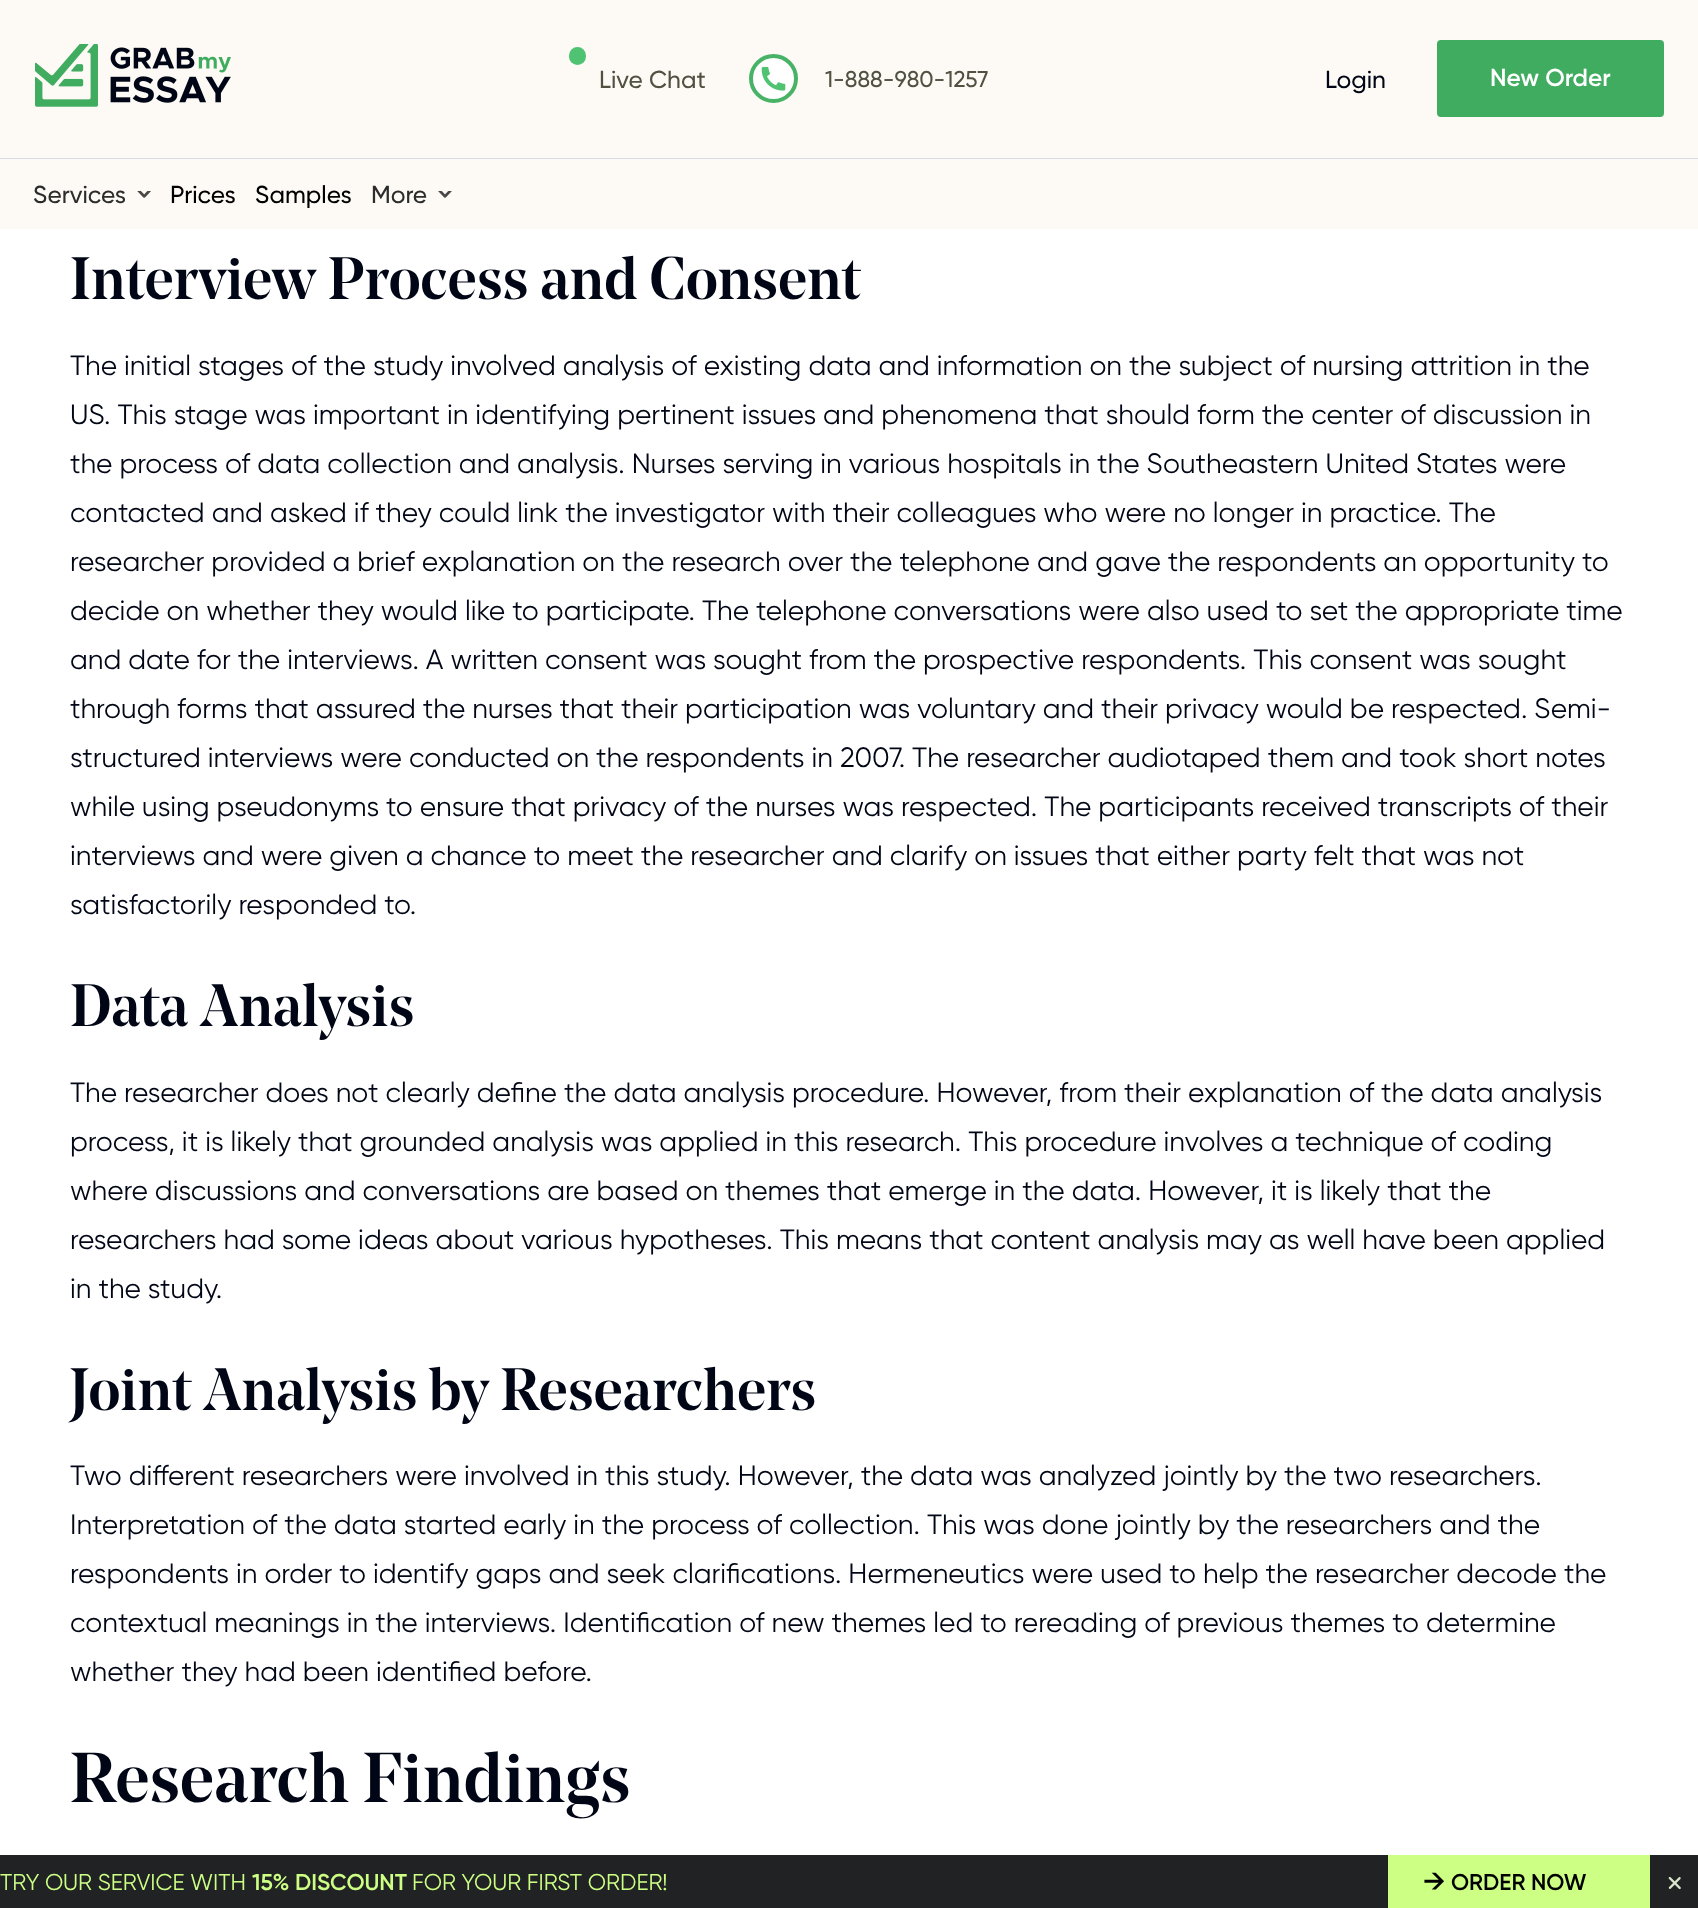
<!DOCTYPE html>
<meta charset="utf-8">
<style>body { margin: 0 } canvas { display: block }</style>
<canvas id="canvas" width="1698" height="1908"></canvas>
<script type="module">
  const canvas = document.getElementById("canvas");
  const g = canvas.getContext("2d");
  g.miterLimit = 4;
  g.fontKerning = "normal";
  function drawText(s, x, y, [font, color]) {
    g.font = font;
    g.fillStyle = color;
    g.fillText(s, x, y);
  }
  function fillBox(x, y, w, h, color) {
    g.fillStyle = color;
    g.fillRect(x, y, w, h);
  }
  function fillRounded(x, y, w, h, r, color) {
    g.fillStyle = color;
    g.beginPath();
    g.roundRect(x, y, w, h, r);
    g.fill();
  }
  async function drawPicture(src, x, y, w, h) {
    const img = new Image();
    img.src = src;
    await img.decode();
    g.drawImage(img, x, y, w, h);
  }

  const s1 = ["500 24.5px Gilroy", "#515142"];
  const s2 = ["500 22.75px Gilroy", "#515142"];
  const s3 = ["500 24.5px Gilroy", "#000615"];
  const s4 = ["600 24.5px Gilroy", "#FFFFFF"];
  const s5 = ["500 24.5px Gilroy", "#2C2C2C"];
  const s6 = ["500 24.5px Gilroy", "#000000"];
  const s7 = ["500 59.5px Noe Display", "#000615"];
  const s8 = ["28px Gilroy", "#000615"];
  const s9 = ["500 70px Noe Display", "#000615"];
  const s10 = ["22.75px Gilroy", "#CCFF84"];
  const s11 = ["600 22.75px Gilroy", "#CCFF84"];
  const s12 = ["600 28px Gilroy", "#000000"];
  const s13 = ["600 22.75px Gilroy", "#000000"];

  fillBox(0, 0, 1698, 1908, "#FFFFFF");
  fillBox(0, 0, 1698, 158, "#FDFAF6");
  fillBox(0, 158, 1698, 1, "#D5DBE0");
  await drawPicture("pic1.png", 35, 44, 196, 63);
  fillRounded(569, 47, 17, 18, 8.5, "#4FC371");
  drawText("Live Chat", 599, 88, s1);
  g.fillStyle = "#FFFFFF";
  g.beginPath();
  g.arc(773.5, 78.5, 24.5, 0, Math.PI * 2);
  g.fill();
  await drawPicture("pic2.png", 761, 66, 25, 25);
  g.beginPath();
  g.arc(773.5, 78.5, 22.5, 0, Math.PI * 2);
  g.strokeStyle = "#48B367";
  g.lineWidth = 4;
  g.stroke();
  drawText("1-888-980-1257", 825, 87, s2);
  drawText("Login", 1325, 88, s3);
  fillRounded(1437, 40, 227, 77, 4, "#40AC60");
  drawText("New Order", 1490, 86, s4);
  fillBox(0, 159, 1698, 70, "#FDFAF6");
  drawText("Services", 33, 203, s5);
  await drawPicture("pic3.png", 137, 191, 14, 7);
  drawText("Prices", 170, 203, s6);
  drawText("Samples", 255, 203, s6);
  drawText("More", 371, 203, s5);
  await drawPicture("pic4.png", 438, 191, 14, 7);
  drawText("Interview Process and Consent", 70, 299, s7);
  drawText("The initial stages of the study involved analysis of existing data and information on the subject of nursing attrition in the", 70, 375, s8);
  drawText("US. This stage was important in identifying pertinent issues and phenomena that should form the center of discussion in", 70, 424, s8);
  drawText("the process of data collection and analysis. Nurses serving in various hospitals in the Southeastern United States were", 70, 473, s8);
  drawText("contacted and asked if they could link the investigator with their colleagues who were no longer in practice. The", 70, 522, s8);
  drawText("researcher provided a brief explanation on the research over the telephone and gave the respondents an opportunity to", 70, 571, s8);
  drawText("decide on whether they would like to participate. The telephone conversations were also used to set the appropriate time", 70, 620, s8);
  drawText("and date for the interviews. A written consent was sought from the prospective respondents. This consent was sought", 70, 669, s8);
  drawText("through forms that assured the nurses that their participation was voluntary and their privacy would be respected. Semi-", 70, 718, s8);
  drawText("structured interviews were conducted on the respondents in 2007. The researcher audiotaped them and took short notes", 70, 767, s8);
  drawText("while using pseudonyms to ensure that privacy of the nurses was respected. The participants received transcripts of their", 70, 816, s8);
  drawText("interviews and were given a chance to meet the researcher and clarify on issues that either party felt that was not", 70, 865, s8);
  drawText("satisfactorily responded to.", 70, 914, s8);
  drawText("Data Analysis", 70, 1026, s7);
  drawText("The researcher does not clearly define the data analysis procedure. However, from their explanation of the data analysis", 70, 1102, s8);
  drawText("process, it is likely that grounded analysis was applied in this research. This procedure involves a technique of coding", 70, 1151, s8);
  drawText("where discussions and conversations are based on themes that emerge in the data. However, it is likely that the", 70, 1200, s8);
  drawText("researchers had some ideas about various hypotheses. This means that content analysis may as well have been applied", 70, 1249, s8);
  drawText("in the study.", 70, 1298, s8);
  drawText("Joint Analysis by Researchers", 70, 1410, s7);
  drawText("Two different researchers were involved in this study. However, the data was analyzed jointly by the two researchers.", 70, 1485, s8);
  drawText("Interpretation of the data started early in the process of collection. This was done jointly by the researchers and the", 70, 1534, s8);
  drawText("respondents in order to identify gaps and seek clarifications. Hermeneutics were used to help the researcher decode the", 70, 1583, s8);
  drawText("contextual meanings in the interviews. Identification of new themes led to rereading of previous themes to determine", 70, 1632, s8);
  drawText("whether they had been identified before.", 70, 1681, s8);
  drawText("Research Findings", 70, 1802, s9);
  fillBox(0, 1855, 1698, 53, "#212223");
  drawText("TRY OUR SERVICE WITH", 0, 1890, s10);
  drawText("15% DISCOUNT", 252, 1890, s11);
  drawText("FOR YOUR FIRST ORDER!", 412, 1890, s10);
  fillBox(1388, 1855, 262, 53, "#CCFF84");
  drawText("→", 1423, 1891, s12);
  drawText("ORDER NOW", 1451, 1890, s13);
  await drawPicture("pic5.png", 1668, 1876, 13, 14);
</script>
